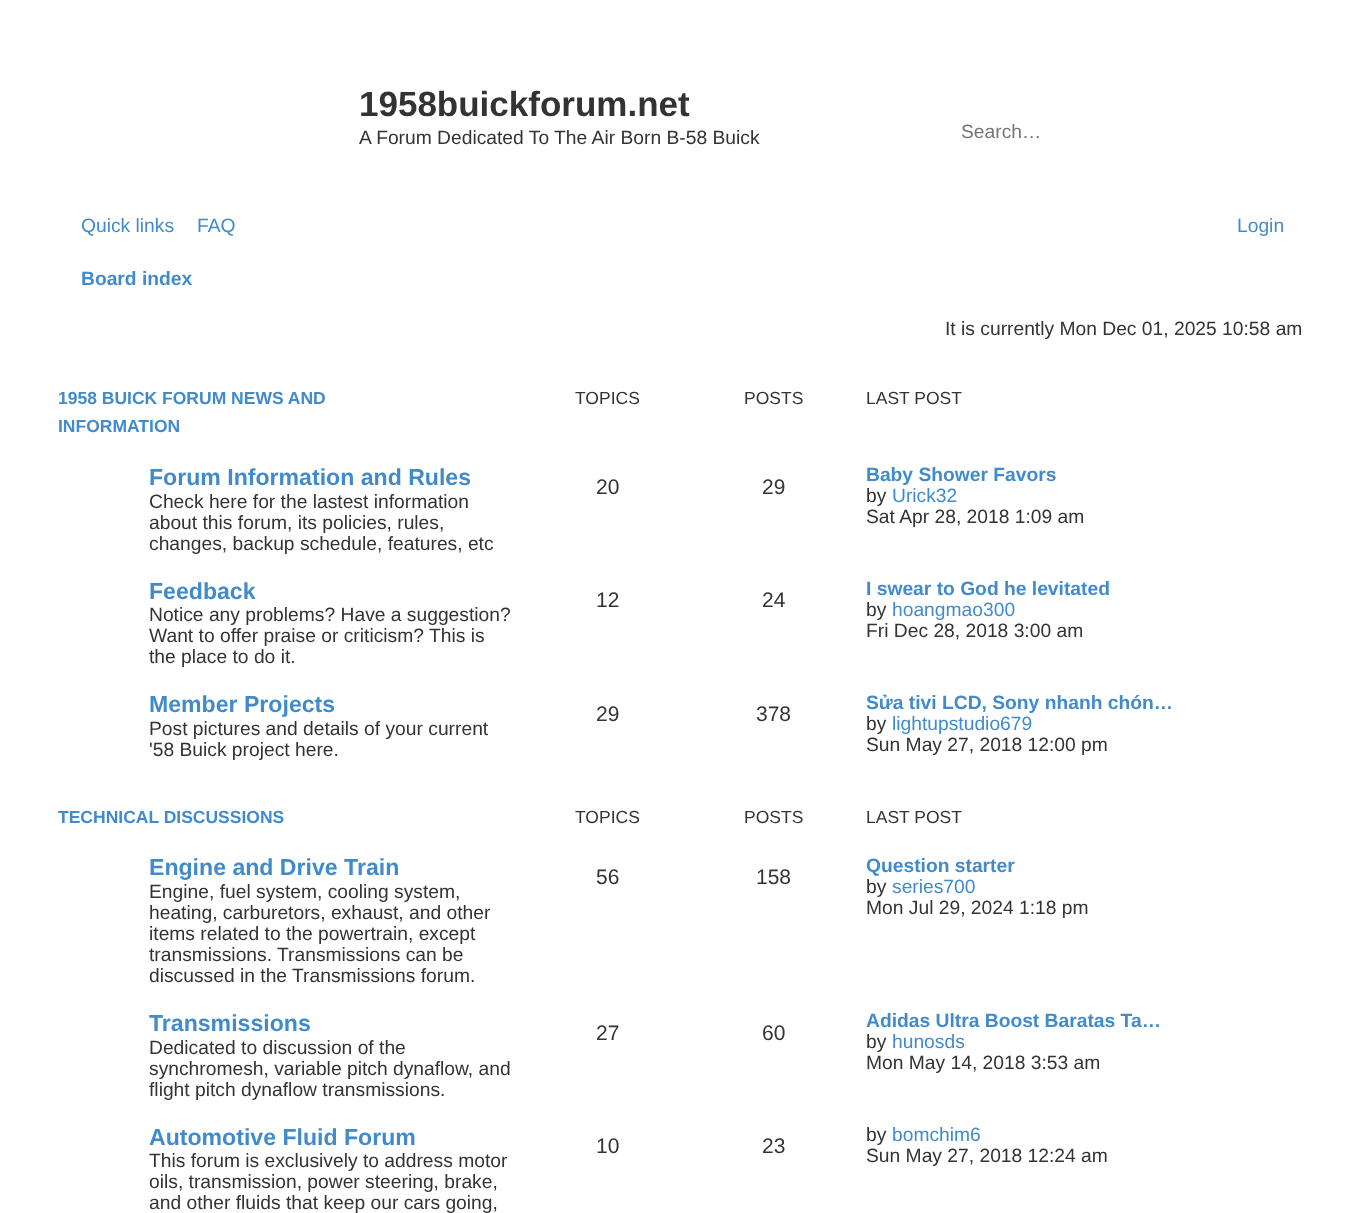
<!DOCTYPE html>
<meta charset="utf-8">
<style>body { margin: 0 } canvas { display: block }</style>
<canvas id="canvas" width="1351" height="1213"></canvas>
<script type="module">
  const canvas = document.getElementById("canvas");
  const g = canvas.getContext("2d");
  g.miterLimit = 4;
  g.fontKerning = "normal";
  function drawText(s, x, y, [font, color]) {
    g.font = font;
    g.fillStyle = color;
    g.fillText(s, x, y);
  }
  function fillBox(x, y, w, h, color) {
    g.fillStyle = color;
    g.fillRect(x, y, w, h);
  }

  const s1 = ["bold 35px Liberation Sans", "#333333"];
  const s2 = ["19.25px Liberation Sans", "#333333"];
  const s3 = ["19.25px Liberation Sans", "#757575"];
  const s4 = ["19.25px Liberation Sans", "#428BCA"];
  const s5 = ["bold 19.25px Liberation Sans", "#428BCA"];
  const s6 = ["bold 17.5px Liberation Sans", "#428BCA"];
  const s7 = ["17.5px Liberation Sans", "#333333"];
  const s8 = ["bold 23.1px Liberation Sans", "#428BCA"];
  const s9 = ["21px Liberation Sans", "#333333"];

  fillBox(0, 0, 1351, 1213, "#FFFFFF");
  drawText("1958buickforum.net", 359, 116, s1);
  drawText("A Forum Dedicated To The Air Born B-58 Buick", 359, 144, s2);
  drawText("Search…", 961, 138, s3);
  drawText("Quick links", 81, 232, s4);
  drawText("FAQ", 197, 232, s4);
  drawText("Login", 1237, 232, s4);
  drawText("Board index", 81, 285, s5);
  drawText("It is currently Mon Dec 01, 2025 10:58 am", 945, 335, s2);
  drawText("1958 BUICK FORUM NEWS AND", 58, 404, s6);
  drawText("INFORMATION", 58, 432, s6);
  drawText("TOPICS", 575, 404, s7);
  drawText("POSTS", 744, 404, s7);
  drawText("LAST POST", 866, 404, s7);
  drawText("Forum Information and Rules", 149, 485, s8);
  drawText("Check here for the lastest information", 149, 508, s2);
  drawText("about this forum, its policies, rules,", 149, 529, s2);
  drawText("changes, backup schedule, features, etc", 149, 550, s2);
  drawText("20", 596, 494, s9);
  drawText("29", 762, 494, s9);
  drawText("Baby Shower Favors", 866, 481, s5);
  drawText("by", 866, 502, s2);
  drawText("Urick32", 892, 502, s4);
  drawText("Sat Apr 28, 2018 1:09 am", 866, 523, s2);
  drawText("Feedback", 149, 599, s8);
  drawText("Notice any problems? Have a suggestion?", 149, 621, s2);
  drawText("Want to offer praise or criticism? This is", 149, 642, s2);
  drawText("the place to do it.", 149, 663, s2);
  drawText("12", 596, 607, s9);
  drawText("24", 762, 607, s9);
  drawText("I swear to God he levitated", 866, 595, s5);
  drawText("by", 866, 616, s2);
  drawText("hoangmao300", 892, 616, s4);
  drawText("Fri Dec 28, 2018 3:00 am", 866, 637, s2);
  drawText("Member Projects", 149, 712, s8);
  drawText("Post pictures and details of your current", 149, 735, s2);
  drawText("'58 Buick project here.", 149, 756, s2);
  drawText("29", 596, 721, s9);
  drawText("378", 756, 721, s9);
  drawText("Sửa tivi LCD, Sony nhanh chón…", 866, 709, s5);
  drawText("by", 866, 730, s2);
  drawText("lightupstudio679", 892, 730, s4);
  drawText("Sun May 27, 2018 12:00 pm", 866, 751, s2);
  drawText("TECHNICAL DISCUSSIONS", 58, 823, s6);
  drawText("TOPICS", 575, 823, s7);
  drawText("POSTS", 744, 823, s7);
  drawText("LAST POST", 866, 823, s7);
  drawText("Engine and Drive Train", 149, 875, s8);
  drawText("Engine, fuel system, cooling system,", 149, 898, s2);
  drawText("heating, carburetors, exhaust, and other", 149, 919, s2);
  drawText("items related to the powertrain, except", 149, 940, s2);
  drawText("transmissions. Transmissions can be", 149, 961, s2);
  drawText("discussed in the Transmissions forum.", 149, 982, s2);
  drawText("56", 596, 884, s9);
  drawText("158", 756, 884, s9);
  drawText("Question starter", 866, 872, s5);
  drawText("by", 866, 893, s2);
  drawText("series700", 892, 893, s4);
  drawText("Mon Jul 29, 2024 1:18 pm", 866, 914, s2);
  drawText("Transmissions", 149, 1031, s8);
  drawText("Dedicated to discussion of the", 149, 1054, s2);
  drawText("synchromesh, variable pitch dynaflow, and", 149, 1075, s2);
  drawText("flight pitch dynaflow transmissions.", 149, 1096, s2);
  drawText("27", 596, 1040, s9);
  drawText("60", 762, 1040, s9);
  drawText("Adidas Ultra Boost Baratas Ta…", 866, 1027, s5);
  drawText("by", 866, 1048, s2);
  drawText("hunosds", 892, 1048, s4);
  drawText("Mon May 14, 2018 3:53 am", 866, 1069, s2);
  drawText("Automotive Fluid Forum", 149, 1145, s8);
  drawText("This forum is exclusively to address motor", 149, 1167, s2);
  drawText("oils, transmission, power steering, brake,", 149, 1188, s2);
  drawText("and other fluids that keep our cars going,", 149, 1209, s2);
  drawText("10", 596, 1153, s9);
  drawText("23", 762, 1153, s9);
  drawText("by", 866, 1141, s2);
  drawText("bomchim6", 892, 1141, s4);
  drawText("Sun May 27, 2018 12:24 am", 866, 1162, s2);
</script>
